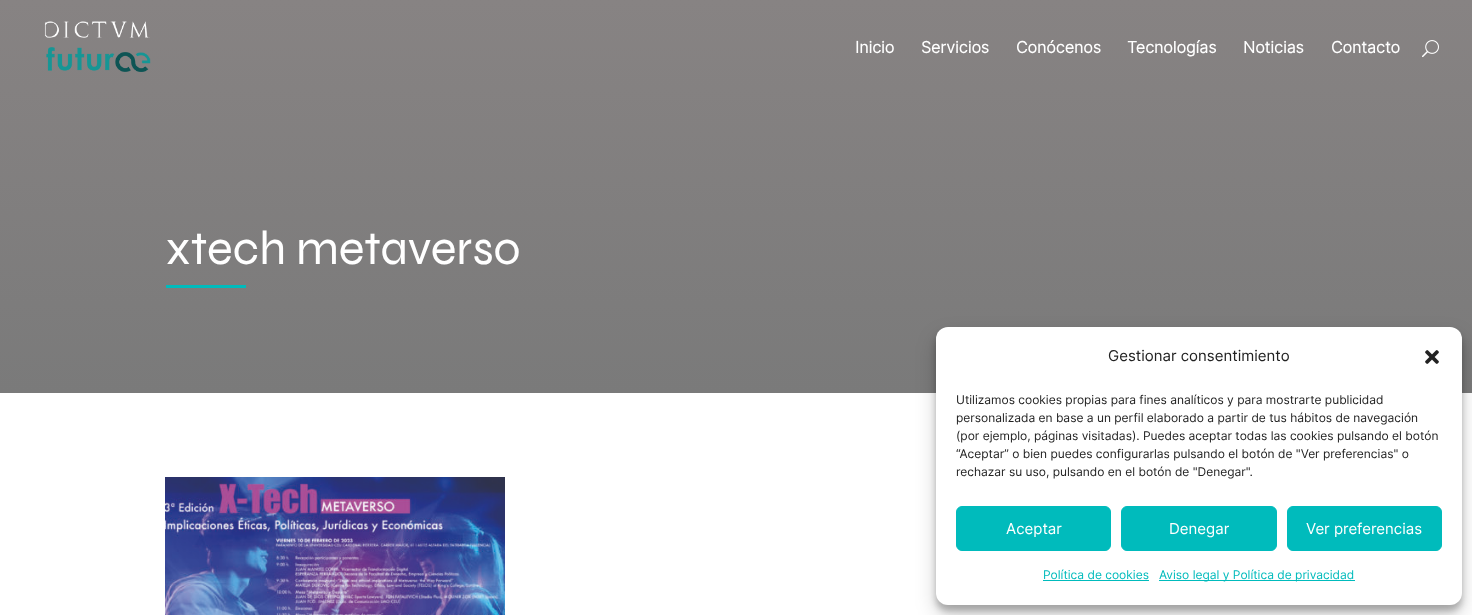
<!DOCTYPE html>
<meta charset="utf-8">
<style>body { margin: 0 } canvas { display: block }</style>
<canvas id="canvas" width="1472" height="615"></canvas>
<script type="module">
  const canvas = document.getElementById("canvas");
  const g = canvas.getContext("2d");
  g.miterLimit = 4;
  g.fontKerning = "normal";
  function drawText(s, x, y, [font, color]) {
    g.font = font;
    g.fillStyle = color;
    g.fillText(s, x, y);
  }
  function fillBox(x, y, w, h, color) {
    g.fillStyle = color;
    g.fillRect(x, y, w, h);
  }
  function fillRounded(x, y, w, h, r, color) {
    g.fillStyle = color;
    g.beginPath();
    g.roundRect(x, y, w, h, r);
    g.fill();
  }
  async function drawPicture(src, x, y, w, h) {
    const img = new Image();
    img.src = src;
    await img.decode();
    g.drawImage(img, x, y, w, h);
  }
  let gradient;

  const s1 = ["bold 16px Inter", "#FFFFFF"];
  const s2 = ["48px Syne", "#FFFFFF"];
  const s3 = ["15px Inter", "#222222"];
  const s4 = ["12px Inter", "#222222"];
  const s5 = ["15px Inter", "#FFFFFF"];
  const s6 = ["12px Inter", "#00BBBC"];

  fillBox(0, 0, 1472, 615, "#FFFFFF");
  gradient = g.createLinearGradient(736, 0, 736, 393);
  gradient.addColorStop(0, "#878383");
  gradient.addColorStop(1, "#7A7A7A");
  g.fillStyle = gradient;
  g.fillRect(0, 0, 1472, 393);
  await drawPicture("pic1.png", 44, 21, 107, 51);
  drawText("Inicio", 855, 53, s1);
  drawText("Servicios", 921, 53, s1);
  drawText("Conócenos", 1016, 53, s1);
  drawText("Tecnologías", 1127, 53, s1);
  drawText("Noticias", 1243, 53, s1);
  drawText("Contacto", 1331, 53, s1);
  await drawPicture("pic2.png", 1422, 40, 17, 18);
  drawText("xtech metaverso", 166, 264, s2);
  fillBox(166, 285, 80, 3, "#00BBBC");
  await drawPicture("pic3.png", 165, 477, 340, 138);
  g.fillStyle = "rgba(0, 0, 0, 0.23)";
  g.filter = "blur(3px)";
  g.beginPath();
  g.roundRect(936, 333, 526, 278, 12);
  g.fill();
  g.filter = "none";
  g.fillStyle = "rgba(0, 0, 0, 0.19)";
  g.filter = "blur(10px)";
  g.beginPath();
  g.roundRect(936, 337, 526, 278, 12);
  g.fill();
  g.filter = "none";
  fillRounded(936, 327, 526, 278, 12, "#FFFFFF");
  drawText("Gestionar consentimiento", 1108, 361, s3);
  await drawPicture("pic4.png", 1425, 350, 14, 14);
  drawText("Utilizamos cookies propias para fines analíticos y para mostrarte publicidad", 956, 404, s4);
  drawText("personalizada en base a un perfil elaborado a partir de tus hábitos de navegación", 956, 422, s4);
  drawText("(por ejemplo, páginas visitadas). Puedes aceptar todas las cookies pulsando el botón", 956, 440, s4);
  drawText("“Aceptar” o bien puedes configurarlas pulsando el botón de \"Ver preferencias\" o", 956, 458, s4);
  drawText("rechazar su uso, pulsando en el botón de \"Denegar\".", 956, 476, s4);
  g.fillStyle = "#00BBBC";
  g.beginPath();
  g.roundRect(956.5, 506.5, 154, 44, 5.5);
  g.fill();
  g.strokeStyle = "#00BBBC";
  g.stroke();
  drawText("Aceptar", 1006, 534, s5);
  g.fillStyle = "#00BBBC";
  g.beginPath();
  g.roundRect(1121.5, 506.5, 155, 44, 5.5);
  g.fill();
  g.stroke();
  drawText("Denegar", 1169, 534, s5);
  g.fillStyle = "#00BBBC";
  g.beginPath();
  g.roundRect(1287.5, 506.5, 154, 44, 5.5);
  g.fill();
  g.stroke();
  drawText("Ver preferencias", 1306, 534, s5);
  drawText("Política de cookies", 1043, 579, s6);
  fillBox(1043, 580, 106, 1, "#00BBBC");
  fillBox(1159, 580, 196, 1, "#00BBBC");
  drawText("Aviso legal y Política de privacidad", 1159, 579, s6);
</script>
